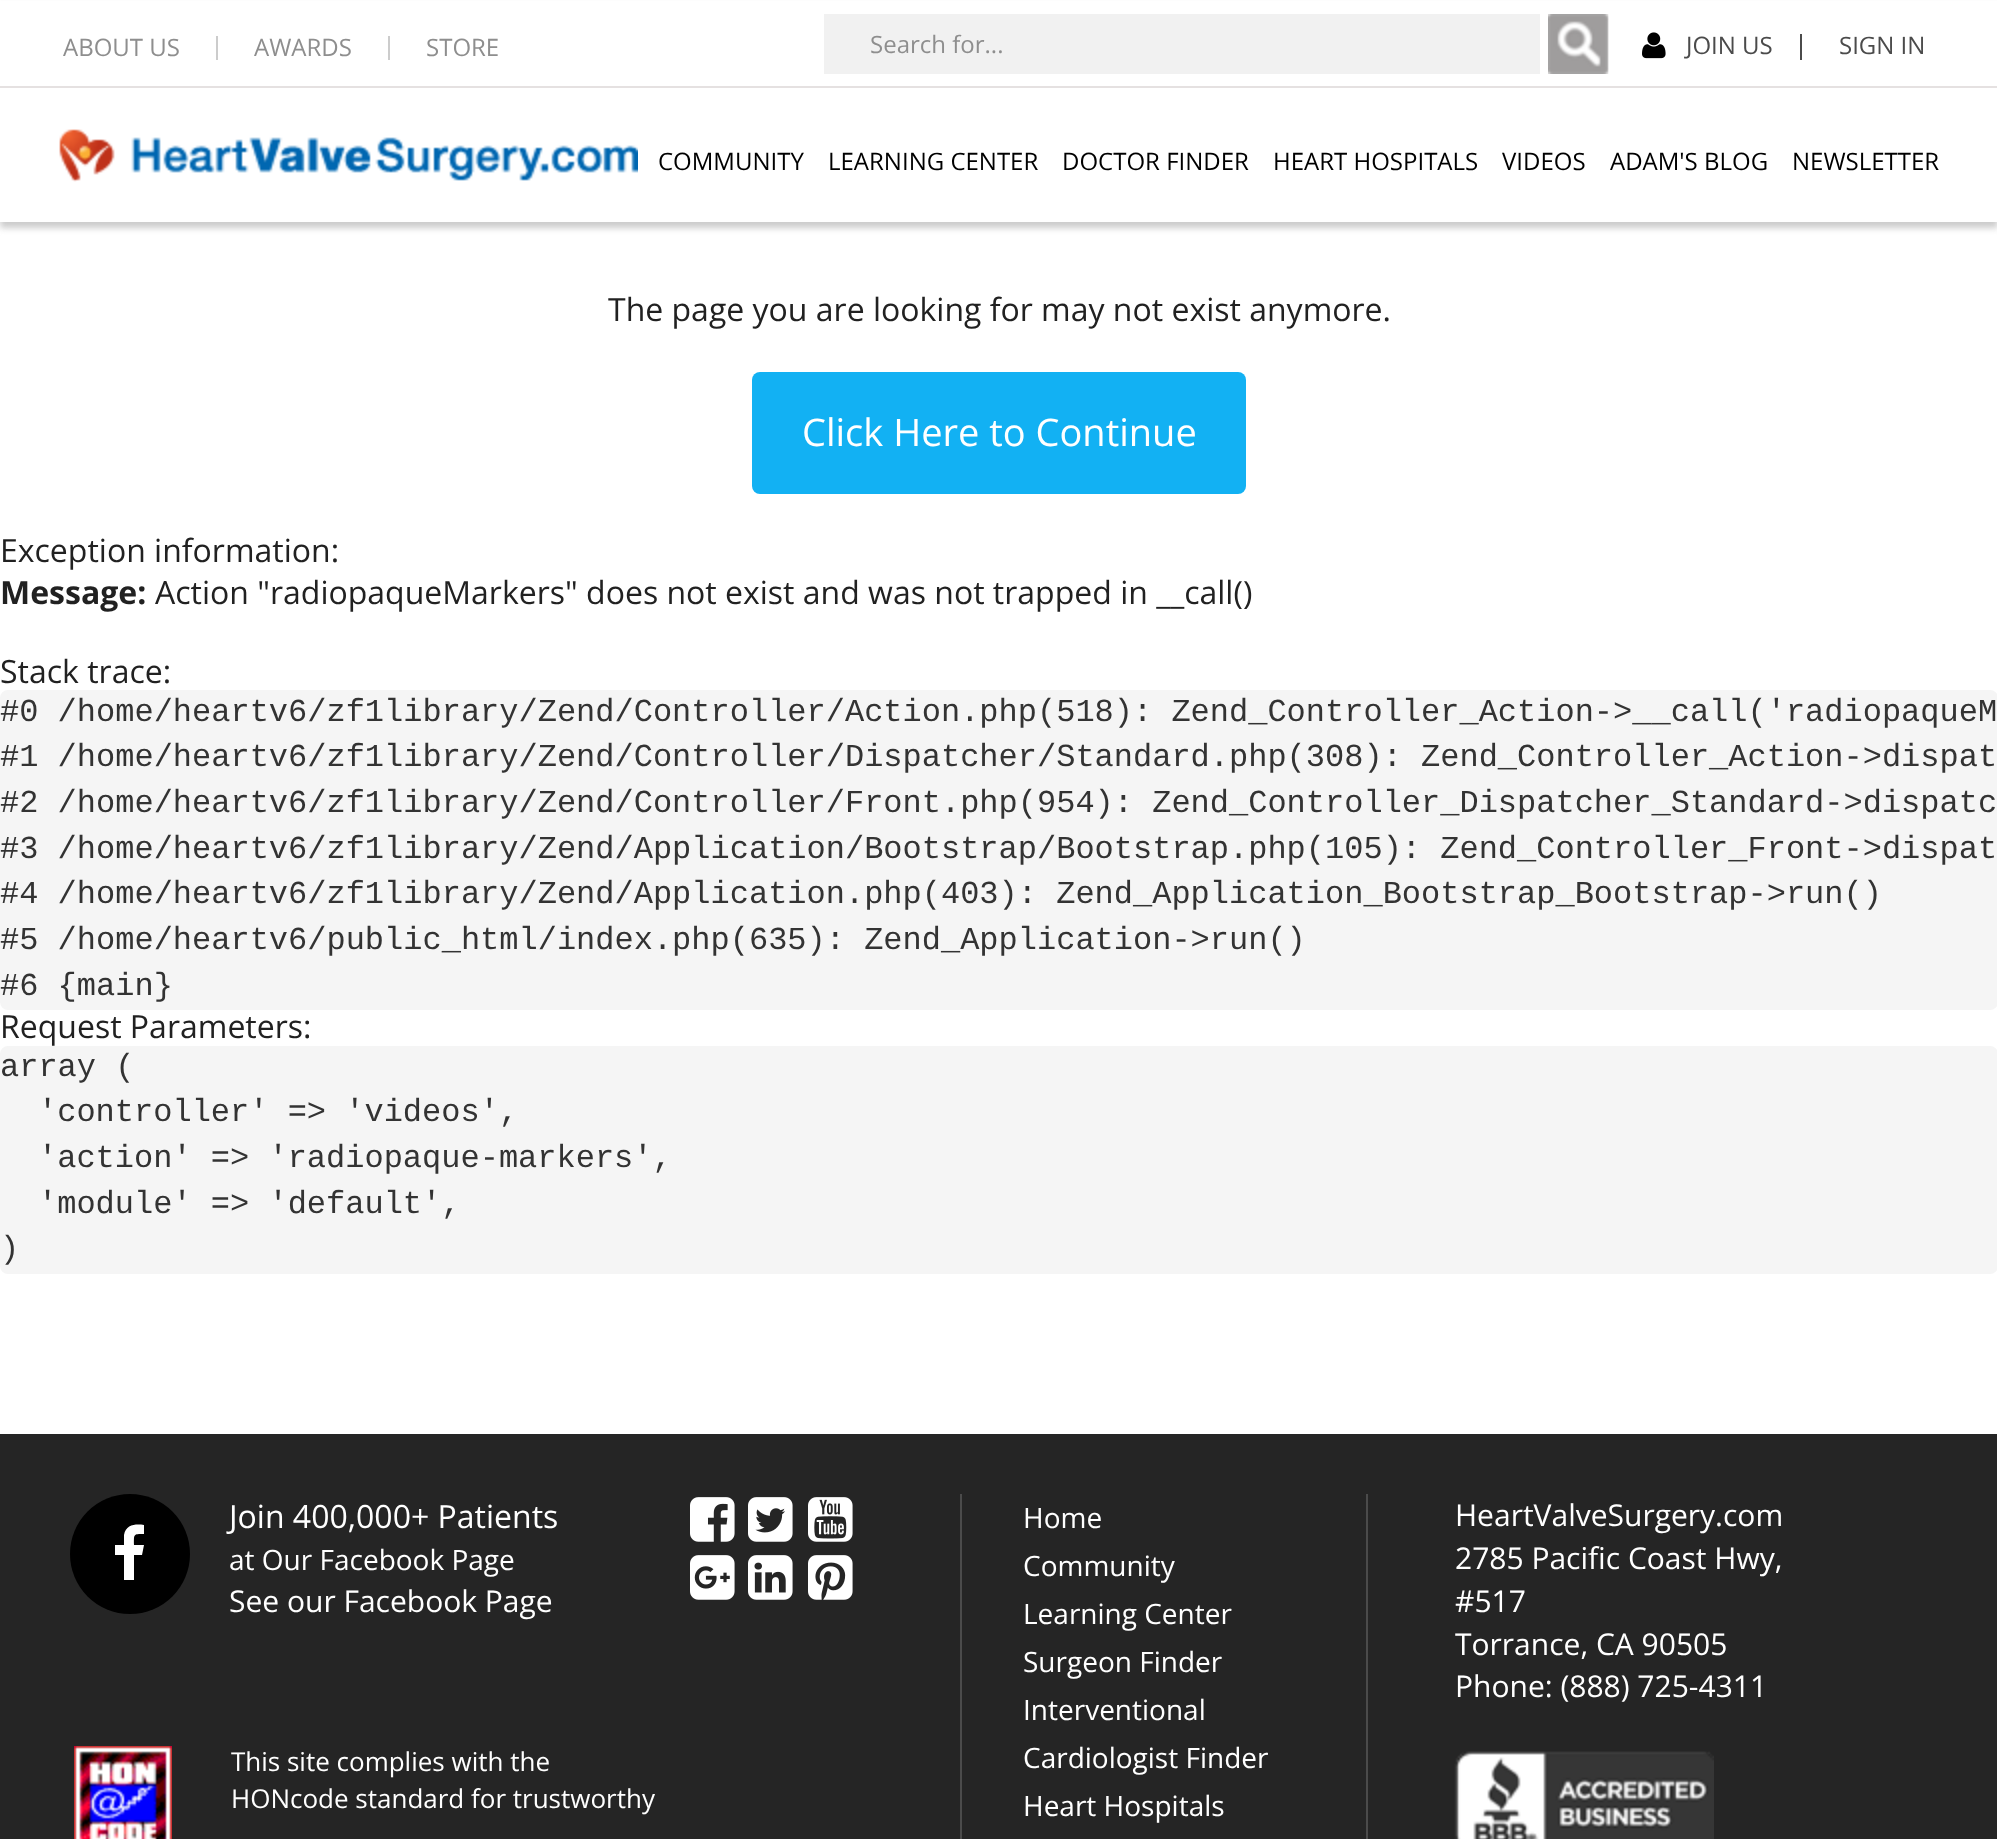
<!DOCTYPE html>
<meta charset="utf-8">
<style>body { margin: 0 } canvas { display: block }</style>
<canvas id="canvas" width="1997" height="1839"></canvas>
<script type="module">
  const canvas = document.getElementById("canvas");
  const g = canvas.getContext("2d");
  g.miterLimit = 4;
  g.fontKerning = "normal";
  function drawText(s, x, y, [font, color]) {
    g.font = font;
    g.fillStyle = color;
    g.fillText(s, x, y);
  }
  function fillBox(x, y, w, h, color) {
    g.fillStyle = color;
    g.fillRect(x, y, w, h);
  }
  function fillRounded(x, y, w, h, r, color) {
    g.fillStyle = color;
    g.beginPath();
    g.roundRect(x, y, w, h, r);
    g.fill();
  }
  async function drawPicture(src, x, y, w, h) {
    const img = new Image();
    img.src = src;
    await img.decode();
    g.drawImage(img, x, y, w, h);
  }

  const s1 = ["24px Open Sans", "#8E8E8E"];
  const s2 = ["24px Open Sans", "#4B4B4B"];
  const s3 = ["24px Open Sans", "#000000"];
  const s4 = ["32px Open Sans", "#212121"];
  const s5 = ["38px Open Sans", "#FFFFFF"];
  const s6 = ["bold 32px Open Sans", "#212121"];
  const s7 = ["32px Liberation Mono", "#333333"];
  const s8 = ["32px Open Sans", "#FFFFFF"];
  const s9 = ["28px Open Sans", "#FFFFFF"];
  const s10 = ["30px Open Sans", "#FFFFFF"];
  const s11 = ["26px Open Sans", "#FFFFFF"];

  fillBox(0, 0, 1997, 1839, "#FFFFFF");
  g.fillStyle = "#CCCCCC";
  g.filter = "blur(3px)";
  g.beginPath();
  g.rect(0, 6, 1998, 222);
  g.fill();
  g.filter = "none";
  fillBox(0, 1, 1997, 221, "#FFFFFF");
  fillBox(216, 36, 2, 24, "#CCCCCC");
  drawText("ABOUT US", 63, 56, s1);
  fillBox(388, 36, 2, 24, "#CCCCCC");
  drawText("AWARDS", 254, 56, s1);
  drawText("STORE", 426, 56, s1);
  fillBox(824, 14, 716, 60, "#F1F1F1");
  drawText("Search for...", 870, 53, s1);
  fillBox(1548, 14, 60, 60, "#EFEFEF");
  await drawPicture("pic1.png", 1548, 14, 61, 60);
  fillBox(1800, 34, 2, 26, "#4B4B4B");
  await drawPicture("pic2.png", 1642, 32, 24, 27);
  drawText("JOIN US", 1686, 54, s2);
  drawText("SIGN IN", 1839, 54, s2);
  fillBox(0, 86, 1997, 2, "#E5E1E1");
  await drawPicture("pic3.png", 59, 129, 579, 53);
  drawText("COMMUNITY", 658, 170, s3);
  drawText("LEARNING CENTER", 828, 170, s3);
  drawText("DOCTOR FINDER", 1062, 170, s3);
  drawText("HEART HOSPITALS", 1273, 170, s3);
  drawText("VIDEOS", 1502, 170, s3);
  drawText("ADAM'S BLOG", 1610, 170, s3);
  drawText("NEWSLETTER", 1792, 170, s3);
  drawText("The page you are looking for may not exist anymore.", 608, 321, s4);
  fillRounded(752, 372, 494, 122, 8, "#12B1F3");
  drawText("Click Here to Continue", 802, 446, s5);
  drawText("Exception information:", 0, 562, s4);
  drawText("Message:", 0, 604, s6);
  drawText("Action \"radiopaqueMarkers\" does not exist and was not trapped in __call()", 155, 604, s4);
  drawText("Stack trace:", 0, 683, s4);
  fillRounded(0, 690, 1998, 320, 8, "#F5F5F5");
  drawText("#0 /home/heartv6/zf1library/Zend/Controller/Action.php(518): Zend_Controller_Action->__call('radiopaqueM", 0, 721, s7);
  drawText("#1 /home/heartv6/zf1library/Zend/Controller/Dispatcher/Standard.php(308): Zend_Controller_Action->dispat", 0, 766, s7);
  drawText("#2 /home/heartv6/zf1library/Zend/Controller/Front.php(954): Zend_Controller_Dispatcher_Standard->dispatc", 0, 812, s7);
  drawText("#3 /home/heartv6/zf1library/Zend/Application/Bootstrap/Bootstrap.php(105): Zend_Controller_Front->dispat", 0, 858, s7);
  drawText("#4 /home/heartv6/zf1library/Zend/Application.php(403): Zend_Application_Bootstrap_Bootstrap->run()", 0, 903, s7);
  drawText("#5 /home/heartv6/public_html/index.php(635): Zend_Application->run()", 0, 949, s7);
  drawText("#6 {main}", 0, 995, s7);
  drawText("Request Parameters:", 0, 1038, s4);
  fillRounded(0, 1046, 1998, 228, 8, "#F5F5F5");
  drawText("array (", 0, 1076, s7);
  drawText("'controller' => 'videos',", 38, 1121, s7);
  drawText("'action' => 'radiopaque-markers',", 38, 1167, s7);
  drawText("'module' => 'default',", 38, 1213, s7);
  drawText(")", 0, 1258, s7);
  fillBox(0, 1434, 1997, 405, "#252525");
  g.fillStyle = "#000000";
  g.beginPath();
  g.arc(130, 1554, 60, 0, Math.PI * 2);
  g.fill();
  g.fillStyle = "#FFFFFF";
  g.beginPath();
  g.moveTo(144, 1525);
  g.lineTo(144, 1534);
  g.bezierCurveTo(133, 1534, 134, 1534, 134, 1545);
  g.lineTo(144, 1545);
  g.lineTo(142, 1555);
  g.lineTo(134, 1555);
  g.lineTo(134, 1580);
  g.lineTo(124, 1580);
  g.lineTo(124, 1555);
  g.lineTo(115, 1555);
  g.lineTo(115, 1545);
  g.lineTo(124, 1545);
  g.lineTo(124, 1535);
  g.bezierCurveTo(126, 1524, 136, 1524, 144, 1525);
  g.closePath();
  g.fill();
  drawText("Join 400,000+ Patients", 229, 1528, s8);
  drawText("at Our Facebook Page", 229, 1570, s9);
  drawText("See our Facebook Page", 229, 1612, s10);
  await drawPicture("pic4.png", 74, 1746, 98, 93);
  drawText("This site complies with the", 231, 1771, s11);
  drawText("HONcode standard for trustworthy", 231, 1808, s11);
  await drawPicture("pic5.png", 690, 1497, 45, 45);
  await drawPicture("pic6.png", 748, 1497, 45, 45);
  await drawPicture("pic7.png", 808, 1497, 45, 45);
  await drawPicture("pic8.png", 690, 1555, 45, 45);
  await drawPicture("pic9.png", 748, 1555, 45, 45);
  await drawPicture("pic10.png", 808, 1555, 45, 45);
  fillBox(1366, 1494, 2, 345, "#4B4B4B");
  fillBox(960, 1494, 2, 345, "#4B4B4B");
  drawText("Home", 1023, 1528, s9);
  drawText("Community", 1023, 1576, s9);
  drawText("Learning Center", 1023, 1624, s9);
  drawText("Surgeon Finder", 1023, 1672, s9);
  drawText("Interventional", 1023, 1720, s9);
  drawText("Cardiologist Finder", 1023, 1768, s9);
  drawText("Heart Hospitals", 1023, 1816, s9);
  drawText("HeartValveSurgery.com", 1455, 1526, s10);
  drawText("2785 Pacific Coast Hwy,", 1455, 1569, s10);
  drawText("#517", 1455, 1612, s10);
  drawText("Torrance, CA 90505", 1455, 1655, s10);
  drawText("Phone: (888) 725-4311", 1455, 1697, s10);
  await drawPicture("pic11.png", 1454, 1751, 260, 88);
</script>
